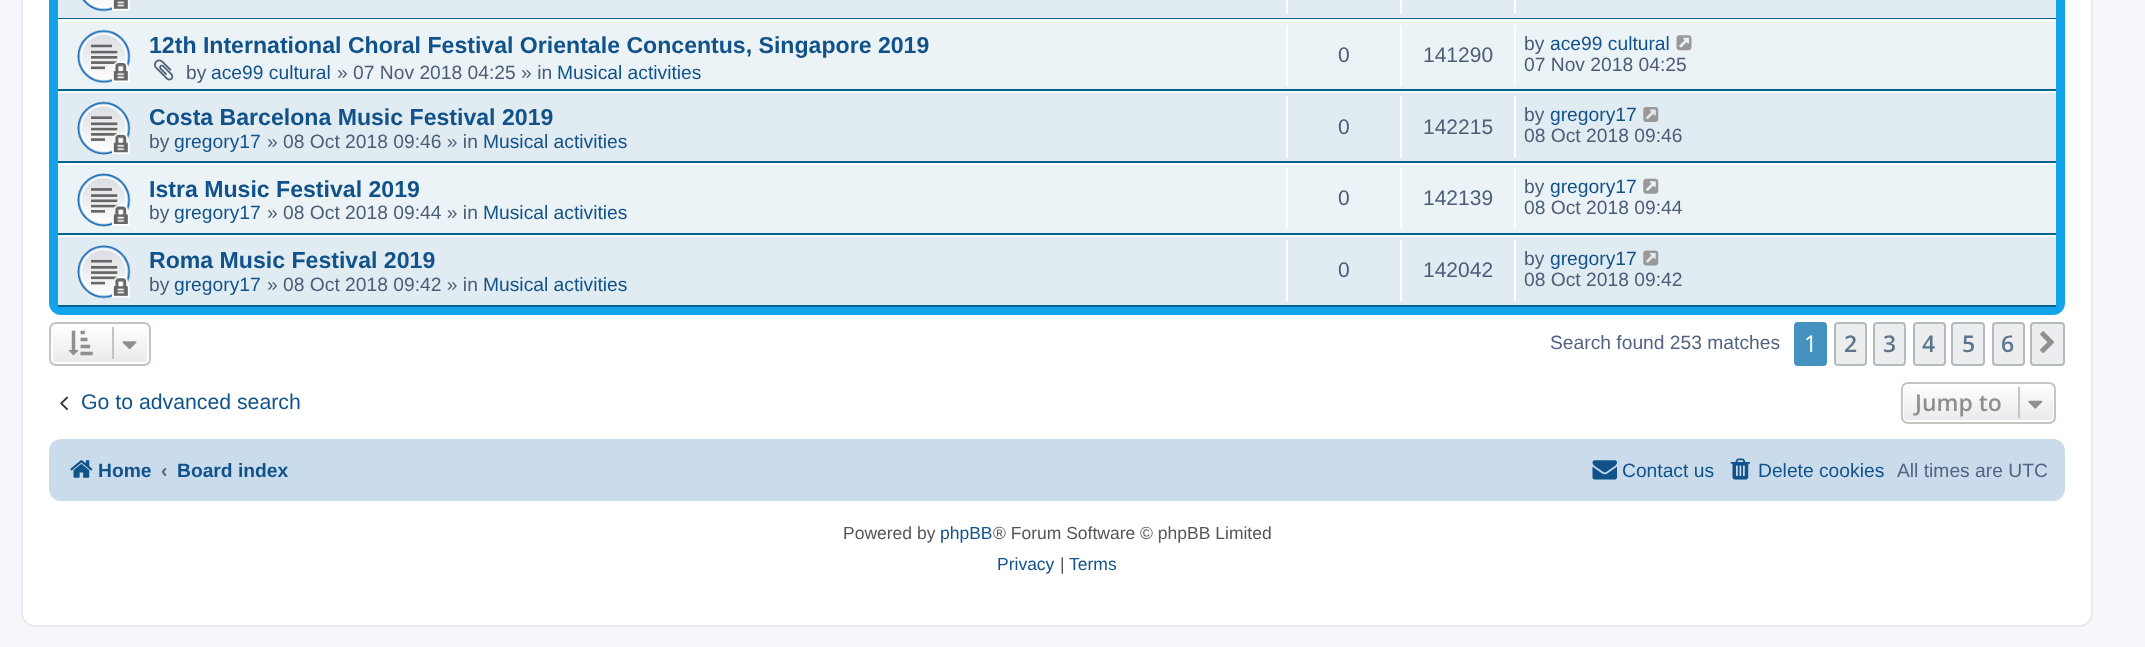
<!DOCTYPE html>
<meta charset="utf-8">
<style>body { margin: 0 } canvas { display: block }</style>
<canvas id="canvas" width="2145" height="647"></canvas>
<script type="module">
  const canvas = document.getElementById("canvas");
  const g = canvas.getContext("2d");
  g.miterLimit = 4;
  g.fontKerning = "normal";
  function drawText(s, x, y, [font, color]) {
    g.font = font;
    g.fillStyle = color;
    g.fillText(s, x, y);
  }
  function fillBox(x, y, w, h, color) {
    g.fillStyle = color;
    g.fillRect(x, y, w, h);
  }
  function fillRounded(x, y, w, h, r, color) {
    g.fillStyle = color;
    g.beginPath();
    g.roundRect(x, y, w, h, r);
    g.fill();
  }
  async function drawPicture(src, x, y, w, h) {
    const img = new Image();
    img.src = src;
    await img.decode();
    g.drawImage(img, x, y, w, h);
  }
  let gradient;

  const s1 = ["bold 23.1px Liberation Sans", "#105289"];
  const s2 = ["19.25px Liberation Sans", "#4C5D77"];
  const s3 = ["19.25px Liberation Sans", "#105289"];
  const s4 = ["21px Liberation Sans", "#4C5D77"];
  const s5 = ["19.25px Liberation Sans", "#536482"];
  const s6 = ["23px Open Sans", "#FFFFFF"];
  const s7 = ["600 23px Open Sans", "#5C758C"];
  const s8 = ["21.25px Liberation Sans", "#105289"];
  const s9 = ["600 23px Open Sans", "#8F8F8F"];
  const s10 = ["bold 19.25px Liberation Sans", "#105289"];
  const s11 = ["bold 19.25px Liberation Sans", "#536482"];
  const s12 = ["17.5px Liberation Sans", "#555555"];
  const s13 = ["17.5px Liberation Sans", "#105289"];

  fillBox(0, 0, 2145, 647, "#F5F7FA");
  g.fillStyle = "#FFFFFF";
  g.beginPath();
  g.roundRect(22, -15, 2070, 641, 13);
  g.fill();
  g.strokeStyle = "#E6E9ED";
  g.lineWidth = 2;
  g.stroke();
  gradient = g.createLinearGradient(1057, -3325, 1057, 315);
  gradient.addColorStop(0, "#6ACEFF");
  gradient.addColorStop(0, "#0076B1");
  gradient.addColorStop(0.04, "#12A3EB");
  gradient.addColorStop(1, "#12A3EB");
  g.fillStyle = gradient;
  g.beginPath();
  g.roundRect(49, -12, 2016, 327, 12);
  g.fill();
  fillBox(58, 0, 1998, 18, "#E1EBF2");
  fillBox(58, 18, 1998, 1, "#00608F");
  await drawPicture("pic1.png", 82, 0, 48, 12);
  fillBox(1286, 0, 2, 14, "#FFFFFF");
  fillBox(1400, 0, 2, 14, "#FFFFFF");
  fillBox(1514, 0, 2, 14, "#FFFFFF");
  fillBox(58, 21, 1998, 68, "#ECF3F7");
  fillBox(58, 19, 1998, 2, "#FFFFFF");
  fillBox(58, 89, 1998, 2, "#00608F");
  await drawPicture("pic2.png", 77, 29, 54, 55);
  drawText("12th International Choral Festival Orientale Concentus, Singapore 2019", 149, 53, s1);
  await drawPicture("pic3.png", 154, 59, 20, 22);
  drawText("by", 186, 79, s2);
  drawText("ace99 cultural", 211, 79, s3);
  drawText("» 07 Nov 2018 04:25 » in", 337, 79, s2);
  drawText("Musical activities", 557, 79, s3);
  fillBox(1286, 25, 2, 61, "#FFFFFF");
  drawText("0", 1338, 62, s4);
  fillBox(1400, 25, 2, 61, "#FFFFFF");
  drawText("141290", 1423, 62, s4);
  fillBox(1514, 25, 2, 61, "#FFFFFF");
  drawText("by", 1524, 50, s2);
  drawText("ace99 cultural", 1550, 50, s3);
  await drawPicture("pic4.png", 1676, 35, 16, 16);
  drawText("07 Nov 2018 04:25", 1524, 71, s2);
  fillBox(58, 93, 1998, 68, "#E1EBF2");
  fillBox(58, 91, 1998, 2, "#FFFFFF");
  fillBox(58, 161, 1998, 2, "#00608F");
  await drawPicture("pic5.png", 77, 101, 54, 54);
  drawText("Costa Barcelona Music Festival 2019", 149, 125, s1);
  drawText("by", 149, 148, s2);
  drawText("gregory17", 174, 148, s3);
  drawText("» 08 Oct 2018 09:46 » in", 267, 148, s2);
  drawText("Musical activities", 483, 148, s3);
  fillBox(1286, 96, 2, 62, "#FFFFFF");
  drawText("0", 1338, 134, s4);
  fillBox(1400, 96, 2, 62, "#FFFFFF");
  drawText("142215", 1423, 134, s4);
  fillBox(1514, 96, 2, 62, "#FFFFFF");
  drawText("by", 1524, 121, s2);
  drawText("gregory17", 1550, 121, s3);
  await drawPicture("pic6.png", 1643, 107, 16, 15);
  drawText("08 Oct 2018 09:46", 1524, 142, s2);
  fillBox(58, 165, 1998, 68, "#ECF3F7");
  fillBox(58, 163, 1998, 2, "#FFFFFF");
  fillBox(58, 233, 1998, 2, "#00608F");
  await drawPicture("pic7.png", 77, 173, 54, 54);
  drawText("Istra Music Festival 2019", 149, 197, s1);
  drawText("by", 149, 219, s2);
  drawText("gregory17", 174, 219, s3);
  drawText("» 08 Oct 2018 09:44 » in", 267, 219, s2);
  drawText("Musical activities", 483, 219, s3);
  fillBox(1286, 168, 2, 61, "#FFFFFF");
  drawText("0", 1338, 205, s4);
  fillBox(1400, 168, 2, 61, "#FFFFFF");
  drawText("142139", 1423, 205, s4);
  fillBox(1514, 168, 2, 61, "#FFFFFF");
  drawText("by", 1524, 193, s2);
  drawText("gregory17", 1550, 193, s3);
  await drawPicture("pic8.png", 1643, 178, 16, 16);
  drawText("08 Oct 2018 09:44", 1524, 214, s2);
  fillBox(58, 237, 1998, 68, "#E1EBF2");
  fillBox(58, 235, 1998, 2, "#FFFFFF");
  fillBox(58, 305, 1998, 2, "#00608F");
  await drawPicture("pic9.png", 77, 245, 54, 54);
  drawText("Roma Music Festival 2019", 149, 268, s1);
  drawText("by", 149, 291, s2);
  drawText("gregory17", 174, 291, s3);
  drawText("» 08 Oct 2018 09:42 » in", 267, 291, s2);
  drawText("Musical activities", 483, 291, s3);
  fillBox(1286, 240, 2, 61, "#FFFFFF");
  drawText("0", 1338, 277, s4);
  fillBox(1400, 240, 2, 61, "#FFFFFF");
  drawText("142042", 1423, 277, s4);
  fillBox(1514, 240, 2, 61, "#FFFFFF");
  drawText("by", 1524, 265, s2);
  drawText("gregory17", 1550, 265, s3);
  await drawPicture("pic10.png", 1643, 250, 16, 16);
  drawText("08 Oct 2018 09:42", 1524, 286, s2);
  g.save();
  g.beginPath();
  g.roundRect(49, 322, 102, 44, 7);
  g.clip();
  gradient = g.createLinearGradient(100, 324, 100, 364);
  gradient.addColorStop(0, "#FFFFFF");
  gradient.addColorStop(1, "#E9E9E9");
  g.fillStyle = gradient;
  g.fillRect(49, 324, 102, 40);
  g.restore();
  g.beginPath();
  g.roundRect(52, 325, 96, 38, 4);
  g.strokeStyle = "#FFFFFF";
  g.stroke();
  g.beginPath();
  g.roundRect(50, 323, 100, 42, 6);
  g.strokeStyle = "#C7C3BF";
  g.stroke();
  await drawPicture("pic11.png", 68, 330, 25, 26);
  fillBox(112, 327, 2, 32, "#C7C3BF");
  await drawPicture("pic12.png", 122, 341, 15, 8);
  drawText("Search found 253 matches", 1550, 349, s5);
  g.fillStyle = "#4692BF";
  g.beginPath();
  g.roundRect(1795, 323, 31, 42, 3);
  g.fill();
  g.strokeStyle = "#4692BF";
  g.stroke();
  drawText("1", 1804, 352, s6);
  g.fillStyle = "#ECEDEE";
  g.beginPath();
  g.roundRect(1835, 323, 31, 42, 3);
  g.fill();
  g.strokeStyle = "#B4BAC0";
  g.stroke();
  drawText("2", 1844, 352, s7);
  g.fillStyle = "#ECEDEE";
  g.beginPath();
  g.roundRect(1874, 323, 31, 42, 3);
  g.fill();
  g.stroke();
  drawText("3", 1883, 352, s7);
  g.fillStyle = "#ECEDEE";
  g.beginPath();
  g.roundRect(1914, 323, 31, 42, 3);
  g.fill();
  g.stroke();
  drawText("4", 1922, 352, s7);
  g.fillStyle = "#ECEDEE";
  g.beginPath();
  g.roundRect(1952, 323, 32, 42, 3);
  g.fill();
  g.stroke();
  drawText("5", 1962, 352, s7);
  g.fillStyle = "#ECEDEE";
  g.beginPath();
  g.roundRect(1993, 323, 31, 42, 3);
  g.fill();
  g.stroke();
  drawText("6", 2001, 352, s7);
  g.fillStyle = "#ECEDEE";
  g.beginPath();
  g.roundRect(2031, 323, 33, 42, 3);
  g.fill();
  g.stroke();
  await drawPicture("pic13.png", 2040, 331, 14, 22);
  await drawPicture("pic14.png", 60, 396, 8, 15);
  drawText("Go to advanced search", 81, 409, s8);
  g.save();
  g.beginPath();
  g.roundRect(1901, 382, 155, 42, 7);
  g.clip();
  gradient = g.createLinearGradient(1978, 383, 1978, 422);
  gradient.addColorStop(0, "#FFFFFF");
  gradient.addColorStop(1, "#E9E9E9");
  g.fillStyle = gradient;
  g.fillRect(1901, 383, 155, 39);
  g.restore();
  g.beginPath();
  g.roundRect(1903, 384, 151, 37, 4);
  g.strokeStyle = "#FFFFFF";
  g.stroke();
  g.beginPath();
  g.roundRect(1902, 383, 153, 40, 6);
  g.strokeStyle = "#C7C3BF";
  g.stroke();
  drawText("Jump to", 1915, 411, s9);
  fillBox(2018, 387, 2, 31, "#C7C3BF");
  await drawPicture("pic15.png", 2028, 400, 15, 9);
  fillRounded(49, 439, 2016, 62, 12, "#CADCEB");
  await drawPicture("pic16.png", 70, 460, 23, 18);
  drawText("Home", 98, 477, s10);
  drawText("‹", 161, 477, s11);
  drawText("Board index", 177, 477, s10);
  await drawPicture("pic17.png", 1592, 460, 25, 20);
  drawText("Contact us", 1622, 477, s3);
  await drawPicture("pic18.png", 1730, 458, 20, 22);
  drawText("Delete cookies", 1758, 477, s3);
  drawText("All times are UTC", 1897, 477, s5);
  drawText("Powered by", 843, 539, s12);
  drawText("phpBB", 940, 539, s13);
  drawText("® Forum Software © phpBB Limited", 993, 539, s12);
  drawText("Privacy", 997, 570, s13);
  drawText("|", 1060, 570, s12);
  drawText("Terms", 1069, 570, s13);
</script>
